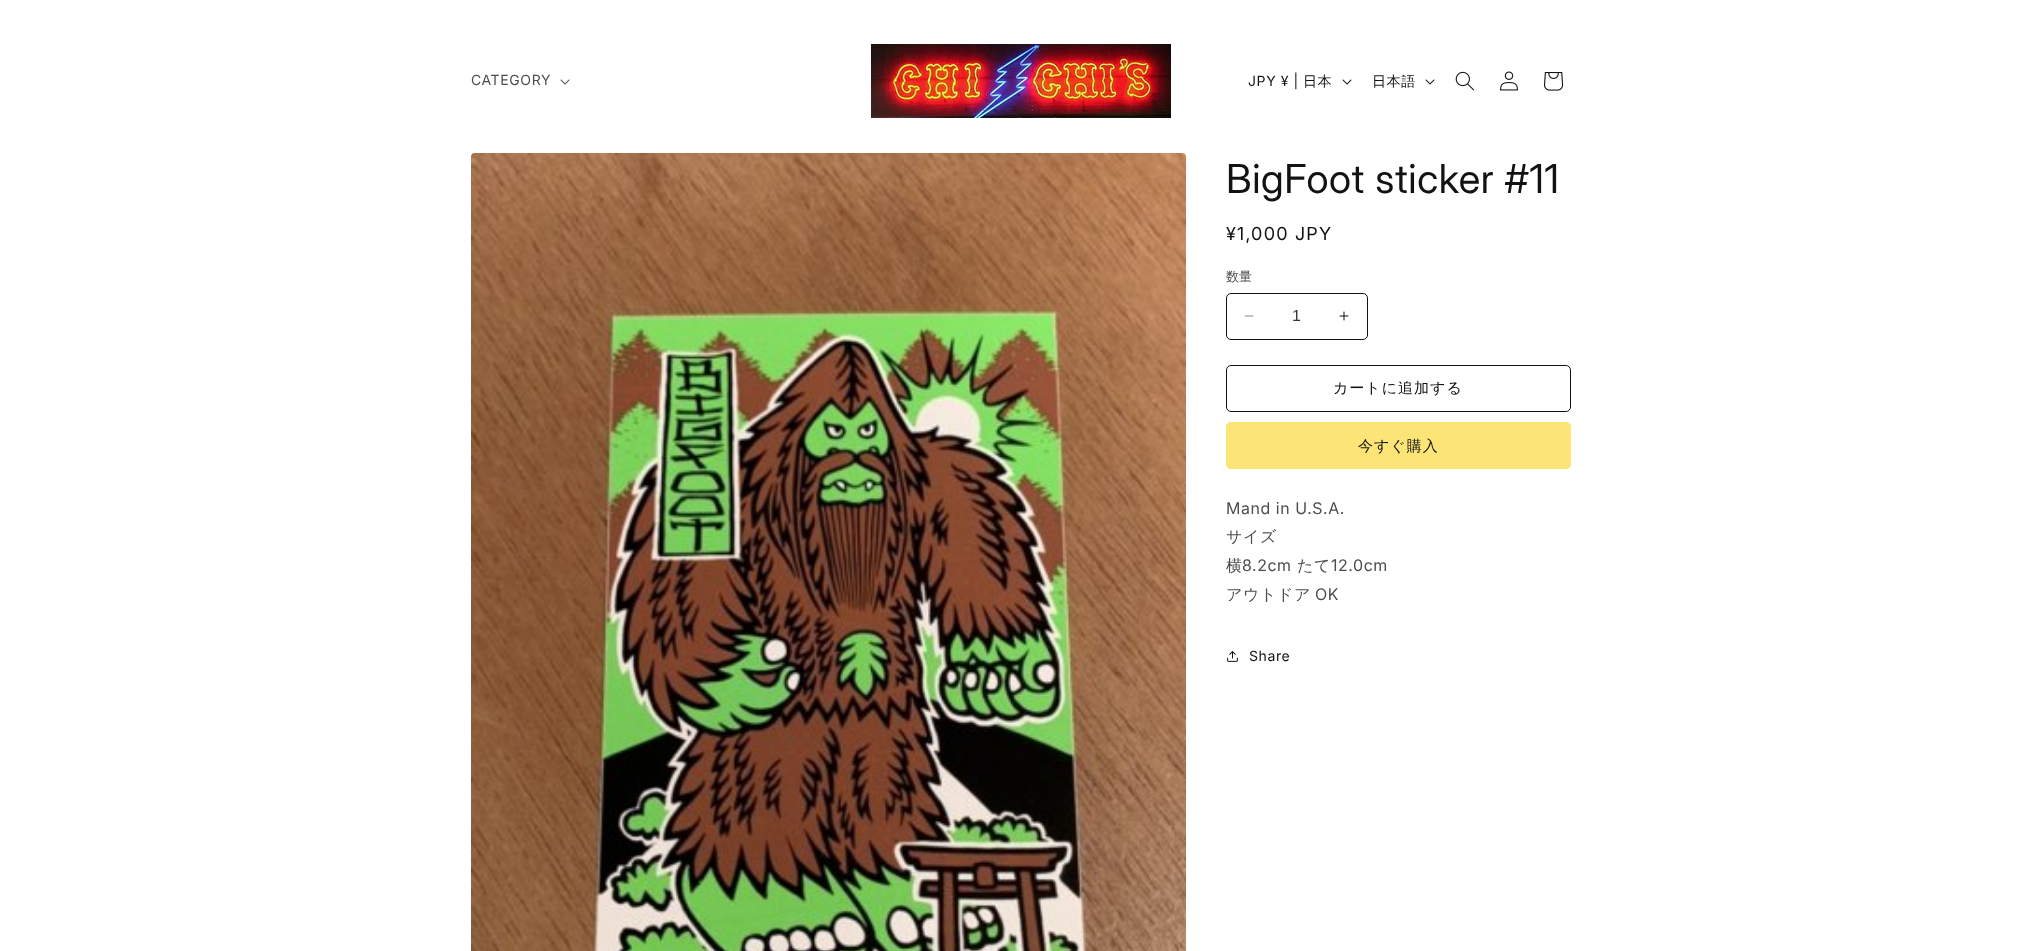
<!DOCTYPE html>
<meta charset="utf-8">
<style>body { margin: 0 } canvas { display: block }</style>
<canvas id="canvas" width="2041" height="951"></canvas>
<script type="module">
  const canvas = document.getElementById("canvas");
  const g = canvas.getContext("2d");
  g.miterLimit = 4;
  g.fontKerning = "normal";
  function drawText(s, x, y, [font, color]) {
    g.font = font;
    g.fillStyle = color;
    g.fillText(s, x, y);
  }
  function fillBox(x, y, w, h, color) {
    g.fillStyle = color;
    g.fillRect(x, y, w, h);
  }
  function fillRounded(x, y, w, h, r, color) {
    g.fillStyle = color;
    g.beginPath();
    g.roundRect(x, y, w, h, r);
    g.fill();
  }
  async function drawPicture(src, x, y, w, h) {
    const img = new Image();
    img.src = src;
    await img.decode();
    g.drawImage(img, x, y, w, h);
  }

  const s1 = ["14px 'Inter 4'", "#4D4D4D"];
  const s2 = ["14px 'Inter 4'", "#121212"];
  const s3 = ["500 14px WenQuanYi Zen Hei", "#121212"];
  const s4 = ["40px Inter", "#121212"];
  const s5 = ["18px 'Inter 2'", "#121212"];
  const s6 = ["500 13px WenQuanYi Zen Hei", "#4D4D4D"];
  const s7 = ["16px Liberation Sans", "#363636"];
  const s8 = ["500 15px WenQuanYi Zen Hei", "#121212"];
  const s9 = ["16px 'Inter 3'", "#4D4D4D"];
  const s10 = ["500 16px WenQuanYi Zen Hei", "#4D4D4D"];

  fillBox(0, 0, 2041, 951, "#FFFFFF");
  g.letterSpacing = "0.6px";
  drawText("CATEGORY", 471, 85, s1);
  await drawPicture("pic1.png", 560, 79, 10, 6);
  await drawPicture("pic2.png", 871, 44, 300, 74);
  drawText("JPY ¥ |", 1248, 86, s2);
  drawText("日本", 1303, 86, s3);
  await drawPicture("pic3.png", 1342, 79, 10, 6);
  drawText("日本語", 1372, 86, s3);
  await drawPicture("pic3.png", 1425, 79, 10, 6);
  await drawPicture("pic4.png", 1455, 71, 19, 20);
  await drawPicture("pic5.png", 1500, 71, 18, 20);
  await drawPicture("pic6.png", 1544, 72, 20, 19);
  await drawPicture("pic7.png", 471, 153, 715, 798);
  drawText("BigFoot sticker #11", 1226, 193, s4);
  g.letterSpacing = "1.25px";
  drawText("¥1,000 JPY", 1226, 240, s5);
  g.letterSpacing = "0px";
  drawText("数量", 1226, 281, s6);
  await drawPicture("pic8.png", 1244, 315, 10, 2);
  await drawPicture("pic9.png", 1339, 311, 10, 10);
  g.beginPath();
  g.roundRect(1226.5, 293.5, 141, 46, 4.5);
  g.strokeStyle = "#121212";
  g.stroke();
  drawText("1", 1292, 321, s7);
  g.beginPath();
  g.roundRect(1226.5, 365.5, 344, 46, 4.5);
  g.stroke();
  g.letterSpacing = "1px";
  drawText("カートに追加する", 1333, 393, s8);
  fillRounded(1226, 422, 345, 47, 5, "#FCE477");
  g.beginPath();
  g.roundRect(1226.5, 422.5, 344, 46, 4.5);
  g.strokeStyle = "#FCE477";
  g.stroke();
  drawText("今すぐ購入", 1358, 451, s8);
  g.letterSpacing = "0.6px";
  drawText("Mand in U.S.A.", 1226, 514, s9);
  drawText("サイズ", 1226, 542, s10);
  drawText("横", 1226, 571, s10);
  drawText("8.2cm", 1242, 571, s9);
  drawText("たて", 1297, 571, s10);
  drawText("12.0cm", 1331, 571, s9);
  drawText("アウトドア", 1226, 600, s10);
  drawText("OK", 1315, 600, s9);
  await drawPicture("pic10.png", 1227, 651, 11, 11);
  drawText("Share", 1249, 661, s2);
</script>
